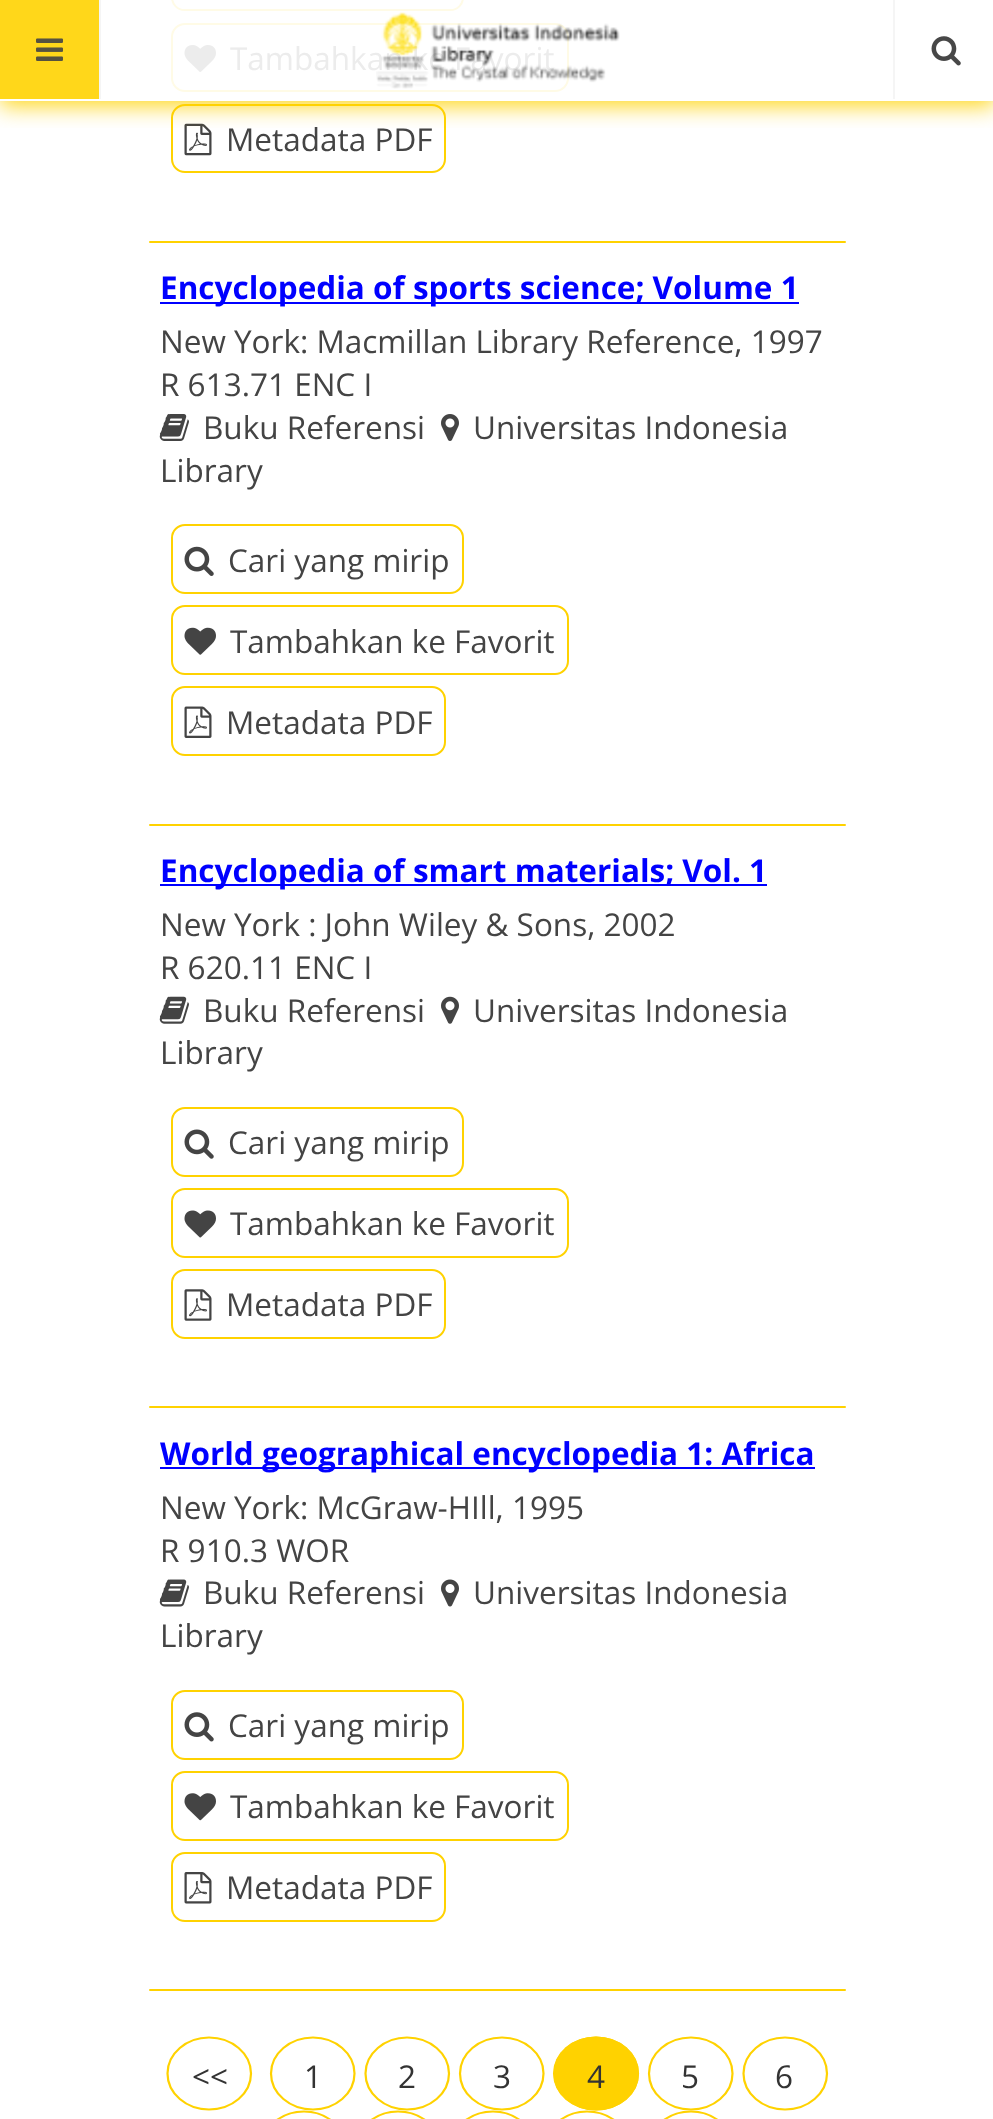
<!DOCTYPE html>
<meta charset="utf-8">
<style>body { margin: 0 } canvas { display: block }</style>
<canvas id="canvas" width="993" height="2119"></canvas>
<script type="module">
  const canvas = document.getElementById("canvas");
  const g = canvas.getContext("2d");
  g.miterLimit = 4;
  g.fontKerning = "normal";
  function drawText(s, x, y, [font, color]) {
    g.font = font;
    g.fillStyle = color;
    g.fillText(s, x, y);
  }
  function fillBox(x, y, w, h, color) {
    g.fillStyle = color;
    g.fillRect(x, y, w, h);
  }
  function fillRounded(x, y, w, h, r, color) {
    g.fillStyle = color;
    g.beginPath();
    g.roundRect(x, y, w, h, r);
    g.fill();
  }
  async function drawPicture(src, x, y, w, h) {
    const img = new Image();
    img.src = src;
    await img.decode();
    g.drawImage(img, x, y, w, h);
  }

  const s1 = ["31.5px Open Sans", "#ECECEC"];
  const s2 = ["31.5px Open Sans", "#444444"];
  const s3 = ["bold 31.5px Open Sans", "#0000FF"];
  const s4 = ["31.5px Open Sans", "#333333"];

  fillBox(0, 0, 993, 2119, "#FFFFFF");
  g.beginPath();
  g.roundRect(172, -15, 291, 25, 13);
  g.strokeStyle = "#FFFBE6";
  g.lineWidth = 2;
  g.stroke();
  g.beginPath();
  g.roundRect(172, 24, 396, 67, 13);
  g.stroke();
  await drawPicture("pic4.png", 184, 45, 32, 27);
  g.beginPath();
  g.roundRect(172, 105, 273, 67, 13);
  g.strokeStyle = "#FFD200";
  g.stroke();
  await drawPicture("pic5.png", 184, 123, 28, 33);
  g.save();
  g.beginPath();
  g.rect(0, 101, 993, 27);
  g.clip();
  g.fillStyle = "rgba(255, 210, 0, 0.9)";
  g.filter = "blur(11px)";
  g.beginPath();
  g.rect(0, 5, 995, 101);
  g.fill();
  g.filter = "none";
  g.restore();
  fillBox(0, 0, 99, 99, "#FFD71A");
  fillBox(99, 0, 2, 99, "#F5F5F5");
  await drawPicture("pic1.png", 36, 38, 27, 23);
  drawText("Tambahkan ke Favorit", 230, 70, s1);
  await drawPicture("pic2.png", 376, 12, 244, 77);
  fillBox(893, 0, 2, 99, "#F5F5F5");
  await drawPicture("pic3.png", 931, 36, 30, 30);
  drawText("Metadata PDF", 226, 151, s2);
  fillRounded(149, 241, 697, 2, 1, "#FFD200");
  fillBox(160, 302, 639, 2, "#0000FF");
  drawText("Encyclopedia of sports science; Volume 1", 160, 299, s3);
  drawText("New York: Macmillan Library Reference, 1997", 160, 353, s2);
  drawText("R 613.71 ENC I", 160, 396, s2);
  await drawPicture("pic6.png", 159, 414, 30, 27);
  drawText("Buku Referensi", 203, 439, s2);
  await drawPicture("pic7.png", 441, 414, 18, 27);
  drawText("Universitas Indonesia", 473, 439, s2);
  drawText("Library", 160, 482, s2);
  g.beginPath();
  g.roundRect(172, 525, 291, 68, 13);
  g.stroke();
  await drawPicture("pic8.png", 184, 546, 30, 30);
  drawText("Cari yang mirip", 228, 572, s2);
  g.beginPath();
  g.roundRect(172, 606, 396, 68, 13);
  g.stroke();
  await drawPicture("pic9.png", 184, 627, 32, 28);
  drawText("Tambahkan ke Favorit", 230, 653, s2);
  g.beginPath();
  g.roundRect(172, 687, 273, 68, 13);
  g.stroke();
  await drawPicture("pic10.png", 184, 706, 28, 32);
  drawText("Metadata PDF", 226, 734, s2);
  fillRounded(149, 824, 697, 2, 1, "#FFD200");
  fillBox(160, 884, 607, 2, "#0000FF");
  drawText("Encyclopedia of smart materials; Vol. 1", 160, 882, s3);
  drawText("New York : John Wiley & Sons, 2002", 160, 936, s2);
  drawText("R 620.11 ENC I", 160, 979, s2);
  await drawPicture("pic11.png", 159, 996, 30, 28);
  drawText("Buku Referensi", 203, 1022, s2);
  await drawPicture("pic12.png", 441, 996, 18, 28);
  drawText("Universitas Indonesia", 473, 1022, s2);
  drawText("Library", 160, 1064, s2);
  g.beginPath();
  g.roundRect(172, 1108, 291, 68, 13);
  g.stroke();
  await drawPicture("pic13.png", 184, 1129, 30, 30);
  drawText("Cari yang mirip", 228, 1154, s2);
  g.beginPath();
  g.roundRect(172, 1189, 396, 68, 13);
  g.stroke();
  await drawPicture("pic14.png", 184, 1210, 32, 28);
  drawText("Tambahkan ke Favorit", 230, 1235, s2);
  g.beginPath();
  g.roundRect(172, 1270, 273, 68, 13);
  g.stroke();
  await drawPicture("pic15.png", 184, 1289, 28, 32);
  drawText("Metadata PDF", 226, 1316, s2);
  fillRounded(149, 1406, 697, 2, 1, "#FFD200");
  fillBox(160, 1467, 655, 2, "#0000FF");
  drawText("World geographical encyclopedia 1: Africa", 160, 1465, s3);
  drawText("New York: McGraw-HIll, 1995", 160, 1519, s2);
  drawText("R 910.3 WOR", 160, 1562, s2);
  await drawPicture("pic16.png", 159, 1579, 30, 28);
  drawText("Buku Referensi", 203, 1604, s2);
  await drawPicture("pic17.png", 441, 1579, 18, 28);
  drawText("Universitas Indonesia", 473, 1604, s2);
  drawText("Library", 160, 1647, s2);
  g.beginPath();
  g.roundRect(172, 1691, 291, 68, 13);
  g.stroke();
  await drawPicture("pic18.png", 184, 1712, 30, 30);
  drawText("Cari yang mirip", 228, 1737, s2);
  g.beginPath();
  g.roundRect(172, 1772, 396, 68, 13);
  g.stroke();
  await drawPicture("pic19.png", 184, 1793, 32, 28);
  drawText("Tambahkan ke Favorit", 230, 1818, s2);
  g.beginPath();
  g.roundRect(172, 1853, 273, 68, 13);
  g.stroke();
  await drawPicture("pic20.png", 184, 1872, 28, 32);
  drawText("Metadata PDF", 226, 1899, s2);
  fillRounded(149, 1989, 697, 2, 1, "#FFD200");
  g.beginPath();
  g.moveTo(209, 2037.5);
  g.bezierCurveTo(232, 2037.5, 251, 2053.5, 251, 2073.5);
  g.bezierCurveTo(251, 2093.5, 232, 2109.5, 209, 2109.5);
  g.bezierCurveTo(186.5, 2109.5, 167.5, 2093.5, 167.5, 2073.5);
  g.bezierCurveTo(167.5, 2053.5, 186.5, 2037.5, 209, 2037.5);
  g.closePath();
  g.lineWidth = 2.2;
  g.stroke();
  drawText("<<", 192, 2088, s4);
  g.beginPath();
  g.moveTo(313, 2037.5);
  g.bezierCurveTo(335.5, 2037.5, 354.5, 2053.5, 354.5, 2073.5);
  g.bezierCurveTo(354.5, 2093.5, 335.5, 2109.5, 313, 2109.5);
  g.bezierCurveTo(290, 2109.5, 271, 2093.5, 271, 2073.5);
  g.bezierCurveTo(271, 2053.5, 290, 2037.5, 313, 2037.5);
  g.closePath();
  g.stroke();
  drawText("1", 304, 2088, s4);
  g.beginPath();
  g.moveTo(407, 2037.5);
  g.bezierCurveTo(430, 2037.5, 449, 2053.5, 449, 2073.5);
  g.bezierCurveTo(449, 2093.5, 430, 2109.5, 407, 2109.5);
  g.bezierCurveTo(384.5, 2109.5, 365.5, 2093.5, 365.5, 2073.5);
  g.bezierCurveTo(365.5, 2053.5, 384.5, 2037.5, 407, 2037.5);
  g.closePath();
  g.stroke();
  drawText("2", 398, 2088, s4);
  g.beginPath();
  g.moveTo(502, 2037.5);
  g.bezierCurveTo(524.5, 2037.5, 543.5, 2053.5, 543.5, 2073.5);
  g.bezierCurveTo(543.5, 2093.5, 524.5, 2109.5, 502, 2109.5);
  g.bezierCurveTo(479, 2109.5, 460, 2093.5, 460, 2073.5);
  g.bezierCurveTo(460, 2053.5, 479, 2037.5, 502, 2037.5);
  g.closePath();
  g.stroke();
  drawText("3", 493, 2088, s4);
  g.fillStyle = "#FFD200";
  g.beginPath();
  g.ellipse(596, 2073.5, 43, 37, 0, 0, Math.PI * 2);
  g.fill();
  g.beginPath();
  g.moveTo(596, 2037.5);
  g.bezierCurveTo(619, 2037.5, 638, 2053.5, 638, 2073.5);
  g.bezierCurveTo(638, 2093.5, 619, 2109.5, 596, 2109.5);
  g.bezierCurveTo(573.5, 2109.5, 554.5, 2093.5, 554.5, 2073.5);
  g.bezierCurveTo(554.5, 2053.5, 573.5, 2037.5, 596, 2037.5);
  g.closePath();
  g.stroke();
  drawText("4", 587, 2088, s4);
  g.beginPath();
  g.moveTo(691, 2037.5);
  g.bezierCurveTo(713.5, 2037.5, 732.5, 2053.5, 732.5, 2073.5);
  g.bezierCurveTo(732.5, 2093.5, 713.5, 2109.5, 691, 2109.5);
  g.bezierCurveTo(668, 2109.5, 649, 2093.5, 649, 2073.5);
  g.bezierCurveTo(649, 2053.5, 668, 2037.5, 691, 2037.5);
  g.closePath();
  g.stroke();
  drawText("5", 681, 2088, s4);
  g.beginPath();
  g.moveTo(785, 2037.5);
  g.bezierCurveTo(808, 2037.5, 827, 2053.5, 827, 2073.5);
  g.bezierCurveTo(827, 2093.5, 808, 2109.5, 785, 2109.5);
  g.bezierCurveTo(762.5, 2109.5, 743.5, 2093.5, 743.5, 2073.5);
  g.bezierCurveTo(743.5, 2053.5, 762.5, 2037.5, 785, 2037.5);
  g.closePath();
  g.stroke();
  drawText("6", 775, 2088, s4);
  g.beginPath();
  g.moveTo(304, 2111.5);
  g.bezierCurveTo(326.5, 2111.5, 345.5, 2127.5, 345.5, 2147.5);
  g.bezierCurveTo(345.5, 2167.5, 326.5, 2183.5, 304, 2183.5);
  g.bezierCurveTo(281, 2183.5, 262, 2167.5, 262, 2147.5);
  g.bezierCurveTo(262, 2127.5, 281, 2111.5, 304, 2111.5);
  g.closePath();
  g.stroke();
  g.beginPath();
  g.moveTo(398, 2111.5);
  g.bezierCurveTo(421, 2111.5, 440, 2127.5, 440, 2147.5);
  g.bezierCurveTo(440, 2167.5, 421, 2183.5, 398, 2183.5);
  g.bezierCurveTo(375.5, 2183.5, 356.5, 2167.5, 356.5, 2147.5);
  g.bezierCurveTo(356.5, 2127.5, 375.5, 2111.5, 398, 2111.5);
  g.closePath();
  g.stroke();
  g.beginPath();
  g.moveTo(493, 2111.5);
  g.bezierCurveTo(515.5, 2111.5, 534.5, 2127.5, 534.5, 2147.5);
  g.bezierCurveTo(534.5, 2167.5, 515.5, 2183.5, 493, 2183.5);
  g.bezierCurveTo(470, 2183.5, 451, 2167.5, 451, 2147.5);
  g.bezierCurveTo(451, 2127.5, 470, 2111.5, 493, 2111.5);
  g.closePath();
  g.stroke();
  g.beginPath();
  g.moveTo(587, 2111.5);
  g.bezierCurveTo(610, 2111.5, 629, 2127.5, 629, 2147.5);
  g.bezierCurveTo(629, 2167.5, 610, 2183.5, 587, 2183.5);
  g.bezierCurveTo(564.5, 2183.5, 545.5, 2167.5, 545.5, 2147.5);
  g.bezierCurveTo(545.5, 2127.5, 564.5, 2111.5, 587, 2111.5);
  g.closePath();
  g.stroke();
  g.beginPath();
  g.moveTo(691, 2111.5);
  g.bezierCurveTo(713.5, 2111.5, 732.5, 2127.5, 732.5, 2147.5);
  g.bezierCurveTo(732.5, 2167.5, 713.5, 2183.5, 691, 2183.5);
  g.bezierCurveTo(668, 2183.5, 649, 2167.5, 649, 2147.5);
  g.bezierCurveTo(649, 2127.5, 668, 2111.5, 691, 2111.5);
  g.closePath();
  g.stroke();
</script>
